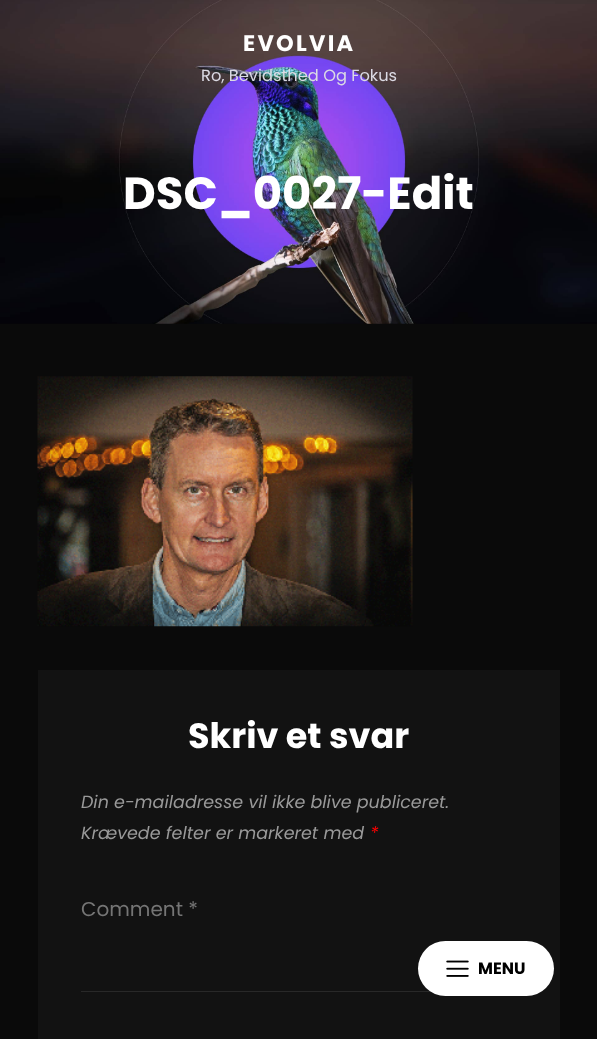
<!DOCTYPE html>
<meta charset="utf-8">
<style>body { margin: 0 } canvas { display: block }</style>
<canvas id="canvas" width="597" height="1039"></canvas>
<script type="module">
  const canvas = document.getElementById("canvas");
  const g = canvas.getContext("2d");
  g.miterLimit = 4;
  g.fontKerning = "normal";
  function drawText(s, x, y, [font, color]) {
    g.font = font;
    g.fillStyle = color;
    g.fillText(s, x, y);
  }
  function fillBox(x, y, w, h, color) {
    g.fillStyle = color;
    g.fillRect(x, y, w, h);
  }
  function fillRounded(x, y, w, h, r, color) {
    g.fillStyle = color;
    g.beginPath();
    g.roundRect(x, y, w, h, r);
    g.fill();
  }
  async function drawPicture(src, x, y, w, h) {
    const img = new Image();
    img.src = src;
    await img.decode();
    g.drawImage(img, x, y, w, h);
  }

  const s1 = ["bold 22.5px Poppins", "#FFFFFF"];
  const s2 = ["16.25px Poppins", "#DBDAE4"];
  const s3 = ["bold 16.25px Poppins", "#000000"];
  const s4 = ["bold 45px Poppins", "#FFFFFF"];
  const s5 = ["bold 35px Poppins", "#FFFFFF"];
  const s6 = ["italic 17.5px Poppins", "#999999"];
  const s7 = ["italic 17.5px Poppins", "#FF0000"];
  const s8 = ["20px Poppins", "#757575"];

  fillBox(0, 0, 597, 1039, "#0A0A0A");
  await drawPicture("pic2.png", 0, 0, 597, 324);
  g.letterSpacing = "2.25px";
  drawText("EVOLVIA", 243, 51, s1);
  g.letterSpacing = "0px";
  drawText("Ro, Bevidsthed Og Fokus", 201, 81, s2);
  fillBox(38, 670, 522, 369, "#121212");
  fillBox(81, 991, 351, 1, "#282828");
  fillRounded(418, 941, 136, 55, 27.5, "#FFFFFF");
  await drawPicture("pic1.png", 446, 960, 23, 17);
  drawText("MENU", 478, 974, s3);
  drawText("DSC_0027-Edit", 123, 209, s4);
  await drawPicture("pic3.png", 37, 376, 376, 251);
  drawText("Skriv et svar", 188, 748, s5);
  drawText("Din e-mailadresse vil ikke blive publiceret.", 81, 808, s6);
  drawText("Krævede felter er markeret med", 81, 839, s6);
  drawText("*", 370, 839, s7);
  drawText("Comment *", 81, 916, s8);
</script>
